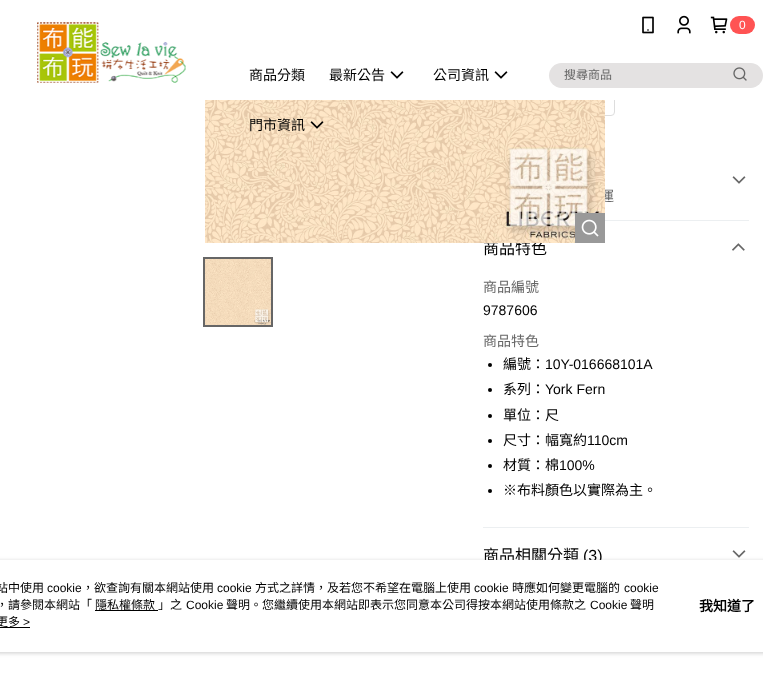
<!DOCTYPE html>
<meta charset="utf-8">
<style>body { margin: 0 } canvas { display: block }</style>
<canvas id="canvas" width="763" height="698"></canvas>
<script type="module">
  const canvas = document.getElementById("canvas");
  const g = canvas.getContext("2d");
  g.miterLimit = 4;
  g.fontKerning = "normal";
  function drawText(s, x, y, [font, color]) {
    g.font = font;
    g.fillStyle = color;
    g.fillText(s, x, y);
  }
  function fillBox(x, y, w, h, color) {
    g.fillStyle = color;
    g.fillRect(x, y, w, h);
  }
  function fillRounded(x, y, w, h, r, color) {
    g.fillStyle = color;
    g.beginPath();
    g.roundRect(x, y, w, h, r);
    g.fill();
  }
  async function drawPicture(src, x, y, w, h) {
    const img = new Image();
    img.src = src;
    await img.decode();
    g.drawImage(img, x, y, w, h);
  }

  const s1 = ["12px Liberation Sans", "#FFFFFF"];
  const s2 = ["14px Noto Sans CJK TC", "#000000"];
  const s3 = ["14px Noto Sans CJK TC", "#666666"];
  const s4 = ["16px Noto Sans CJK TC", "#000000"];
  const s5 = ["12px Noto Sans CJK TC", "#666666"];
  const s6 = ["14px Liberation Sans", "#000000"];
  const s7 = ["16px Liberation Sans", "#000000"];
  const s8 = ["12px Noto Sans CJK TC", "#000000"];
  const s9 = ["12px Liberation Sans", "#000000"];
  const s10 = ["bold 14px Noto Sans CJK TC", "#000000"];

  fillBox(0, 0, 763, 698, "#FFFFFF");
  g.beginPath();
  g.roundRect(483.5, 70.5, 131, 45, 3.5);
  g.strokeStyle = "#DDDDDD";
  g.stroke();
  fillBox(483, 70, 132, 30, "#FFFFFF");
  await drawPicture("pic1.png", 37, 22, 149, 61);
  await drawPicture("pic2.png", 642, 16, 12, 18);
  await drawPicture("pic3.png", 677, 15, 14, 19);
  await drawPicture("pic4.png", 710, 16, 18, 18);
  fillRounded(730, 16, 25, 18, 9, "#FF5353");
  drawText("0", 739, 29, s1);
  drawText("商品分類", 249, 80, s2);
  drawText("最新公告", 329, 80, s2);
  await drawPicture("pic5.png", 390, 71, 14, 8);
  drawText("公司資訊", 433, 80, s2);
  await drawPicture("pic5.png", 494, 71, 14, 8);
  drawText("運", 600, 201, s3);
  drawText("商品特色", 483, 254, s4);
  await drawPicture("pic8.png", 205, 100, 400, 143);
  drawText("門市資訊", 249, 130, s2);
  await drawPicture("pic6.png", 310, 121, 14, 8);
  fillRounded(549, 63, 214, 25, 12.5, "#E4E2E2");
  drawText("搜尋商品", 564, 79, s5);
  await drawPicture("pic7.png", 733, 67, 14, 14);
  fillBox(575, 213, 30, 30, "#999999");
  await drawPicture("pic9.png", 581, 219, 18, 18);
  await drawPicture("pic10.png", 205, 259, 66, 66);
  g.strokeStyle = "#666666";
  g.lineWidth = 2;
  g.strokeRect(204, 258, 68, 68);
  fillBox(605, 220, 144, 1, "#ECEFF1");
  await drawPicture("pic11.png", 732, 176, 14, 8);
  fillBox(483, 527, 266, 1, "#ECEFF1");
  await drawPicture("pic12.png", 732, 243, 13, 8);
  drawText("商品編號", 483, 292, s3);
  drawText("9787606", 483, 315, s6);
  drawText("商品特色", 483, 346, s3);
  g.fillStyle = "#000000";
  g.beginPath();
  g.arc(490, 365, 2, 0, Math.PI * 2);
  g.fill();
  drawText("編號：", 503, 369, s2);
  drawText("10Y-016668101A", 545, 369, s6);
  g.beginPath();
  g.arc(490, 390, 2, 0, Math.PI * 2);
  g.fill();
  drawText("系列：", 503, 394, s2);
  drawText("York Fern", 545, 394, s6);
  g.beginPath();
  g.arc(490, 416, 2, 0, Math.PI * 2);
  g.fill();
  drawText("單位：尺", 503, 420, s2);
  g.beginPath();
  g.arc(490, 441, 2, 0, Math.PI * 2);
  g.fill();
  drawText("尺寸：幅寬約", 503, 445, s2);
  drawText("110cm", 587, 445, s6);
  g.beginPath();
  g.arc(490, 466, 2, 0, Math.PI * 2);
  g.fill();
  drawText("材質：棉", 503, 470, s2);
  drawText("100%", 559, 470, s6);
  g.beginPath();
  g.arc(490, 491, 2, 0, Math.PI * 2);
  g.fill();
  drawText("※布料顏色以實際為主。", 503, 495, s2);
  drawText("商品相關分類", 483, 561, s4);
  drawText("(3)", 583, 561, s7);
  await drawPicture("pic11.png", 732, 550, 14, 8);
  g.fillStyle = "rgba(151, 151, 151, 0.5)";
  g.filter = "blur(2px)";
  g.beginPath();
  g.roundRect(-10, 561, 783, 92, 4);
  g.fill();
  g.filter = "none";
  fillBox(0, 560, 763, 92, "#FFFFFF");
  drawText("站中使用", -4, 592, s8);
  drawText("cookie", 47, 592, s9);
  drawText("，欲查詢有關本網站使用", 82, 592, s8);
  drawText("cookie", 217, 592, s9);
  drawText("方式之詳情，及若您不希望在電腦上使用", 255, 592, s8);
  drawText("cookie", 474, 592, s9);
  drawText("時應如何變更電腦的", 512, 592, s8);
  drawText("cookie", 624, 592, s9);
  drawText("，請參閱本網站「", -4, 609, s8);
  drawText("隱私權條款", 95, 609, s8);
  fillBox(95, 610, 63, 1, "#000000");
  drawText("」之", 158, 609, s8);
  drawText("Cookie", 186, 609, s9);
  drawText("聲明。您繼續使用本網站即表示您同意本公司得按本網站使用條款之", 226, 609, s8);
  drawText("Cookie", 590, 609, s9);
  drawText("聲明", 630, 609, s8);
  drawText("更多", -4, 626, s8);
  drawText(">", 23, 626, s9);
  fillBox(0, 627, 30, 1, "#000000");
  drawText("我知道了", 699, 611, s10);
</script>
